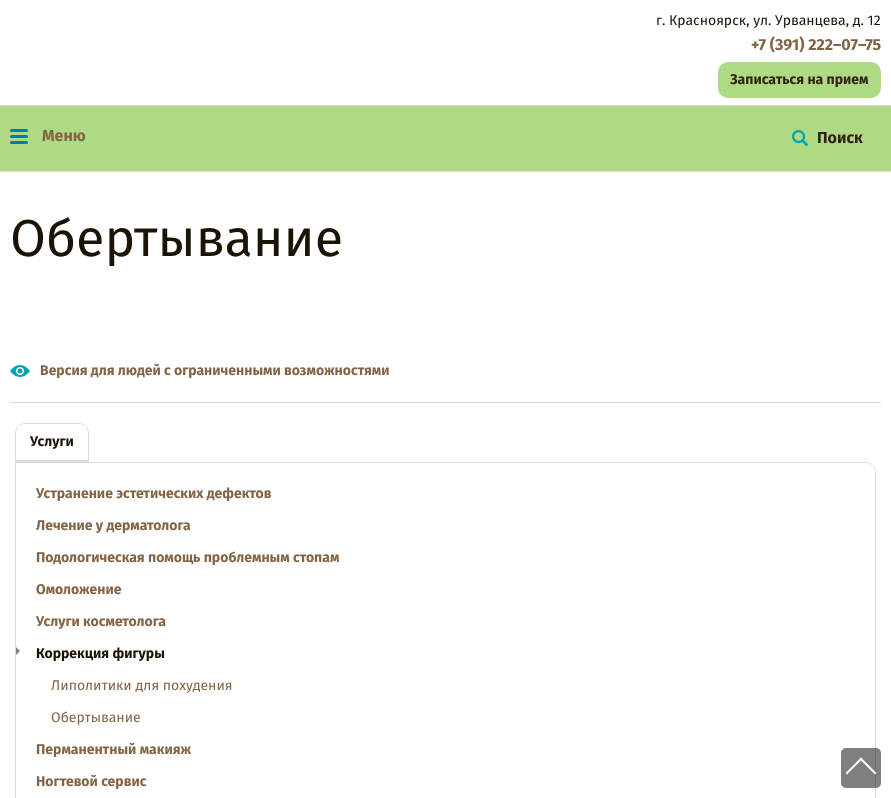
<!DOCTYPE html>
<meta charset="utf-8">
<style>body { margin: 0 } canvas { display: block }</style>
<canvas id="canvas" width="891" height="798"></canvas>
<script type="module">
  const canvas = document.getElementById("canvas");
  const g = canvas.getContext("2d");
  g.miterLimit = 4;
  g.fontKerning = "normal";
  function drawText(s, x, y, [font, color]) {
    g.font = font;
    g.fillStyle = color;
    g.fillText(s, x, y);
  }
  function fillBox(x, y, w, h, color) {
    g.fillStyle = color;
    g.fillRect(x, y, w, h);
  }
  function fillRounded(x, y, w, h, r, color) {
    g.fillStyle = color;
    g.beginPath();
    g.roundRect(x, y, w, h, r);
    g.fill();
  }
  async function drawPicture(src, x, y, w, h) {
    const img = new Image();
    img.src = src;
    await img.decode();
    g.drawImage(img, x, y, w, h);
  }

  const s1 = ["14px Fira Sans", "#1B1303"];
  const s2 = ["bold 16px Fira Sans", "#846446"];
  const s3 = ["bold 14px Fira Sans", "#332110"];
  const s4 = ["bold 16px Fira Sans", "#332110"];
  const s5 = ["52px Fira Sans", "#1B1303"];
  const s6 = ["bold 14px Fira Sans", "#846446"];
  const s7 = ["bold 14px Fira Sans", "#1B1303"];
  const s8 = ["14px Fira Sans", "#846446"];

  fillBox(0, 0, 891, 798, "#FFFFFF");
  drawText("г. Красноярск, ул. Урванцева, д. 12", 656, 25, s1);
  drawText("+7 (391) 222–07–75", 751, 50, s2);
  fillRounded(718, 62, 163, 36, 10, "#AEDA83");
  drawText("Записаться на прием", 730, 84, s3);
  fillBox(0, 106, 891, 65, "#AEDA83");
  fillBox(0, 105, 891, 1, "#DCDCE0");
  fillBox(0, 171, 891, 1, "#DCDCE0");
  fillRounded(10, 135, 18, 3, 1.5, "#0078C1");
  fillRounded(10, 129, 18, 3, 1.5, "#0078C1");
  fillRounded(10, 141, 18, 3, 1.5, "#0078C1");
  drawText("Меню", 42, 141, s2);
  await drawPicture("pic1.png", 792, 130, 16, 16);
  drawText("Поиск", 817, 143, s4);
  g.save();
  g.beginPath();
  g.rect(10, 212, 871, 54);
  g.clip();
  drawText("Обертывание", 10, 256, s5);
  g.restore();
  await drawPicture("pic2.png", 10, 365, 20, 12);
  drawText("Версия для людей с ограниченными возможностями", 40, 375, s6);
  fillBox(10, 402, 871, 1, "#DCDCE0");
  g.beginPath();
  g.roundRect(15.5, 423.5, 73, 38, [9.5, 9.5, 0, 0]);
  g.strokeStyle = "#DCDCE0";
  g.stroke();
  fillBox(15, 460, 74, 1, "#DCDCE0");
  drawText("Услуги", 30, 446, s7);
  g.beginPath();
  g.moveTo(15.5, 462.5);
  g.lineTo(866, 462.5);
  g.bezierCurveTo(871, 462.5, 875.5, 467, 875.5, 472);
  g.lineTo(875.5, 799);
  g.bezierCurveTo(875.5, 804, 871, 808.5, 866, 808.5);
  g.lineTo(25, 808.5);
  g.bezierCurveTo(20, 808.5, 15.5, 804, 15.5, 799);
  g.closePath();
  g.stroke();
  drawText("Устранение эстетических дефектов", 36, 498, s6);
  drawText("Лечение у дерматолога", 36, 530, s6);
  drawText("Подологическая помощь проблемным стопам", 36, 562, s6);
  drawText("Омоложение", 36, 594, s6);
  drawText("Услуги косметолога", 36, 626, s6);
  g.fillStyle = "#818181";
  g.beginPath();
  g.moveTo(16, 655);
  g.lineTo(16, 647);
  g.lineTo(20, 651);
  g.closePath();
  g.fill();
  drawText("Коррекция фигуры", 36, 658, s7);
  drawText("Липолитики для похудения", 51, 690, s8);
  drawText("Обертывание", 51, 722, s8);
  drawText("Перманентный макияж", 36, 754, s6);
  drawText("Ногтевой сервис", 36, 786, s6);
  fillRounded(841, 748, 40, 40, 5, "rgba(0, 0, 0, 0.5)");
  g.fillStyle = "#FFFFFF";
  g.beginPath();
  g.moveTo(861, 757.5);
  g.lineTo(876.5, 773);
  g.lineTo(875, 774.5);
  g.lineTo(859.5, 759);
  g.closePath();
  g.fill();
  g.beginPath();
  g.moveTo(861, 757.5);
  g.lineTo(862.5, 759);
  g.lineTo(847, 774.5);
  g.lineTo(845.5, 773);
  g.closePath();
  g.fill();
</script>
